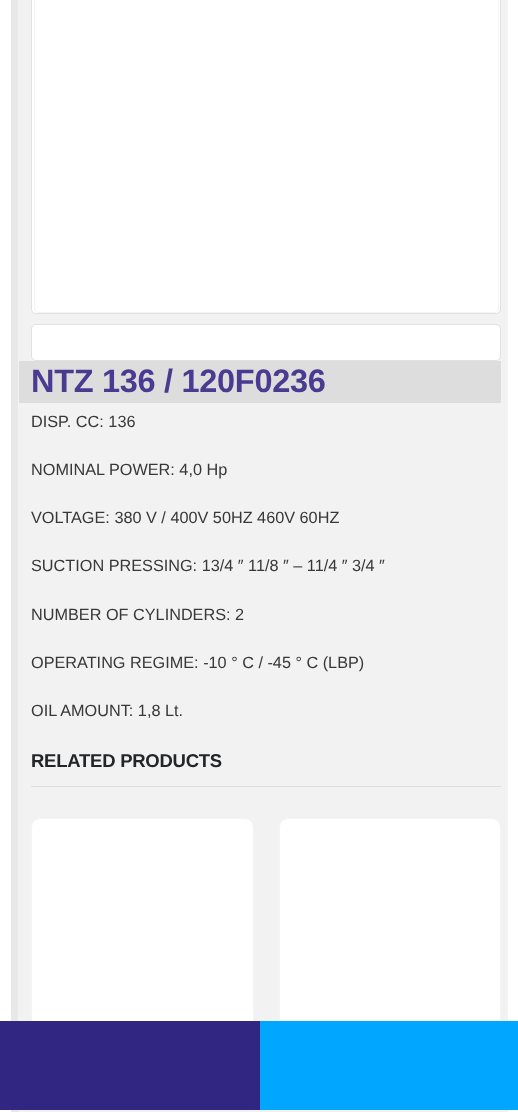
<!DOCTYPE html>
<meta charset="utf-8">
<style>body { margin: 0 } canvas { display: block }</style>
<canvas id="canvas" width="518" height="1112"></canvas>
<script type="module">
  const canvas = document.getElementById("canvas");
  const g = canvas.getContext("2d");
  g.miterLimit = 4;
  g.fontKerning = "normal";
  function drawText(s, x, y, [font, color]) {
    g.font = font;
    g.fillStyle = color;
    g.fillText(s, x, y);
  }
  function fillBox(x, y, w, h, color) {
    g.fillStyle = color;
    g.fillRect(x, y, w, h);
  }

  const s1 = ["bold 32.5px Liberation Sans", "#4A3B90"];
  const s2 = ["16.25px Liberation Sans", "#383838"];
  const s3 = ["bold 18.5px Liberation Sans", "#222529"];

  fillBox(0, 0, 518, 1112, "#FFFFFF");
  fillBox(11, 0, 7, 1112, "#E8E8E8");
  fillBox(18, 0, 490, 1112, "#F2F2F2");
  g.fillStyle = "#FFFFFF";
  g.beginPath();
  g.roundRect(31.5, -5.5, 469, 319, 4.5);
  g.fill();
  g.strokeStyle = "#DEE2E6";
  g.stroke();
  g.beginPath();
  g.roundRect(34.5, -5.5, 464, 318, 4.5);
  g.strokeStyle = "#F4F4F4";
  g.stroke();
  g.beginPath();
  g.roundRect(31.5, 324.5, 469, 36, 4.5);
  g.fill();
  g.strokeStyle = "#DEE2E6";
  g.stroke();
  fillBox(19, 361, 482, 42, "#DDDDDD");
  g.letterSpacing = "-0.3px";
  drawText("NTZ 136 / 120F0236", 31, 392, s1);
  g.letterSpacing = "0px";
  drawText("DISP. CC: 136", 31, 427, s2);
  drawText("NOMINAL POWER: 4,0 Hp", 31, 475, s2);
  drawText("VOLTAGE: 380 V / 400V 50HZ 460V 60HZ", 31, 523, s2);
  drawText("SUCTION PRESSING: 13/4 ″ 11/8 ″ – 11/4 ″ 3/4 ″", 31, 571, s2);
  drawText("NUMBER OF CYLINDERS: 2", 31, 620, s2);
  drawText("OPERATING REGIME: -10 ° C / -45 ° C (LBP)", 31, 668, s2);
  drawText("OIL AMOUNT: 1,8 Lt.", 31, 716, s2);
  fillBox(31, 786, 470, 1, "#DFDFDF");
  g.letterSpacing = "-0.25px";
  drawText("RELATED PRODUCTS", 31, 767, s3);
  g.fillStyle = "#FFFFFF";
  g.beginPath();
  g.roundRect(31.5, 818.5, 222, 221, 8.5);
  g.fill();
  g.strokeStyle = "#F4F4F4";
  g.stroke();
  g.beginPath();
  g.roundRect(279.5, 818.5, 221, 221, 8.5);
  g.fill();
  g.stroke();
  fillBox(0, 1021, 260, 89, "#312783");
  fillBox(260, 1021, 258, 89, "#01A7FF");
</script>
